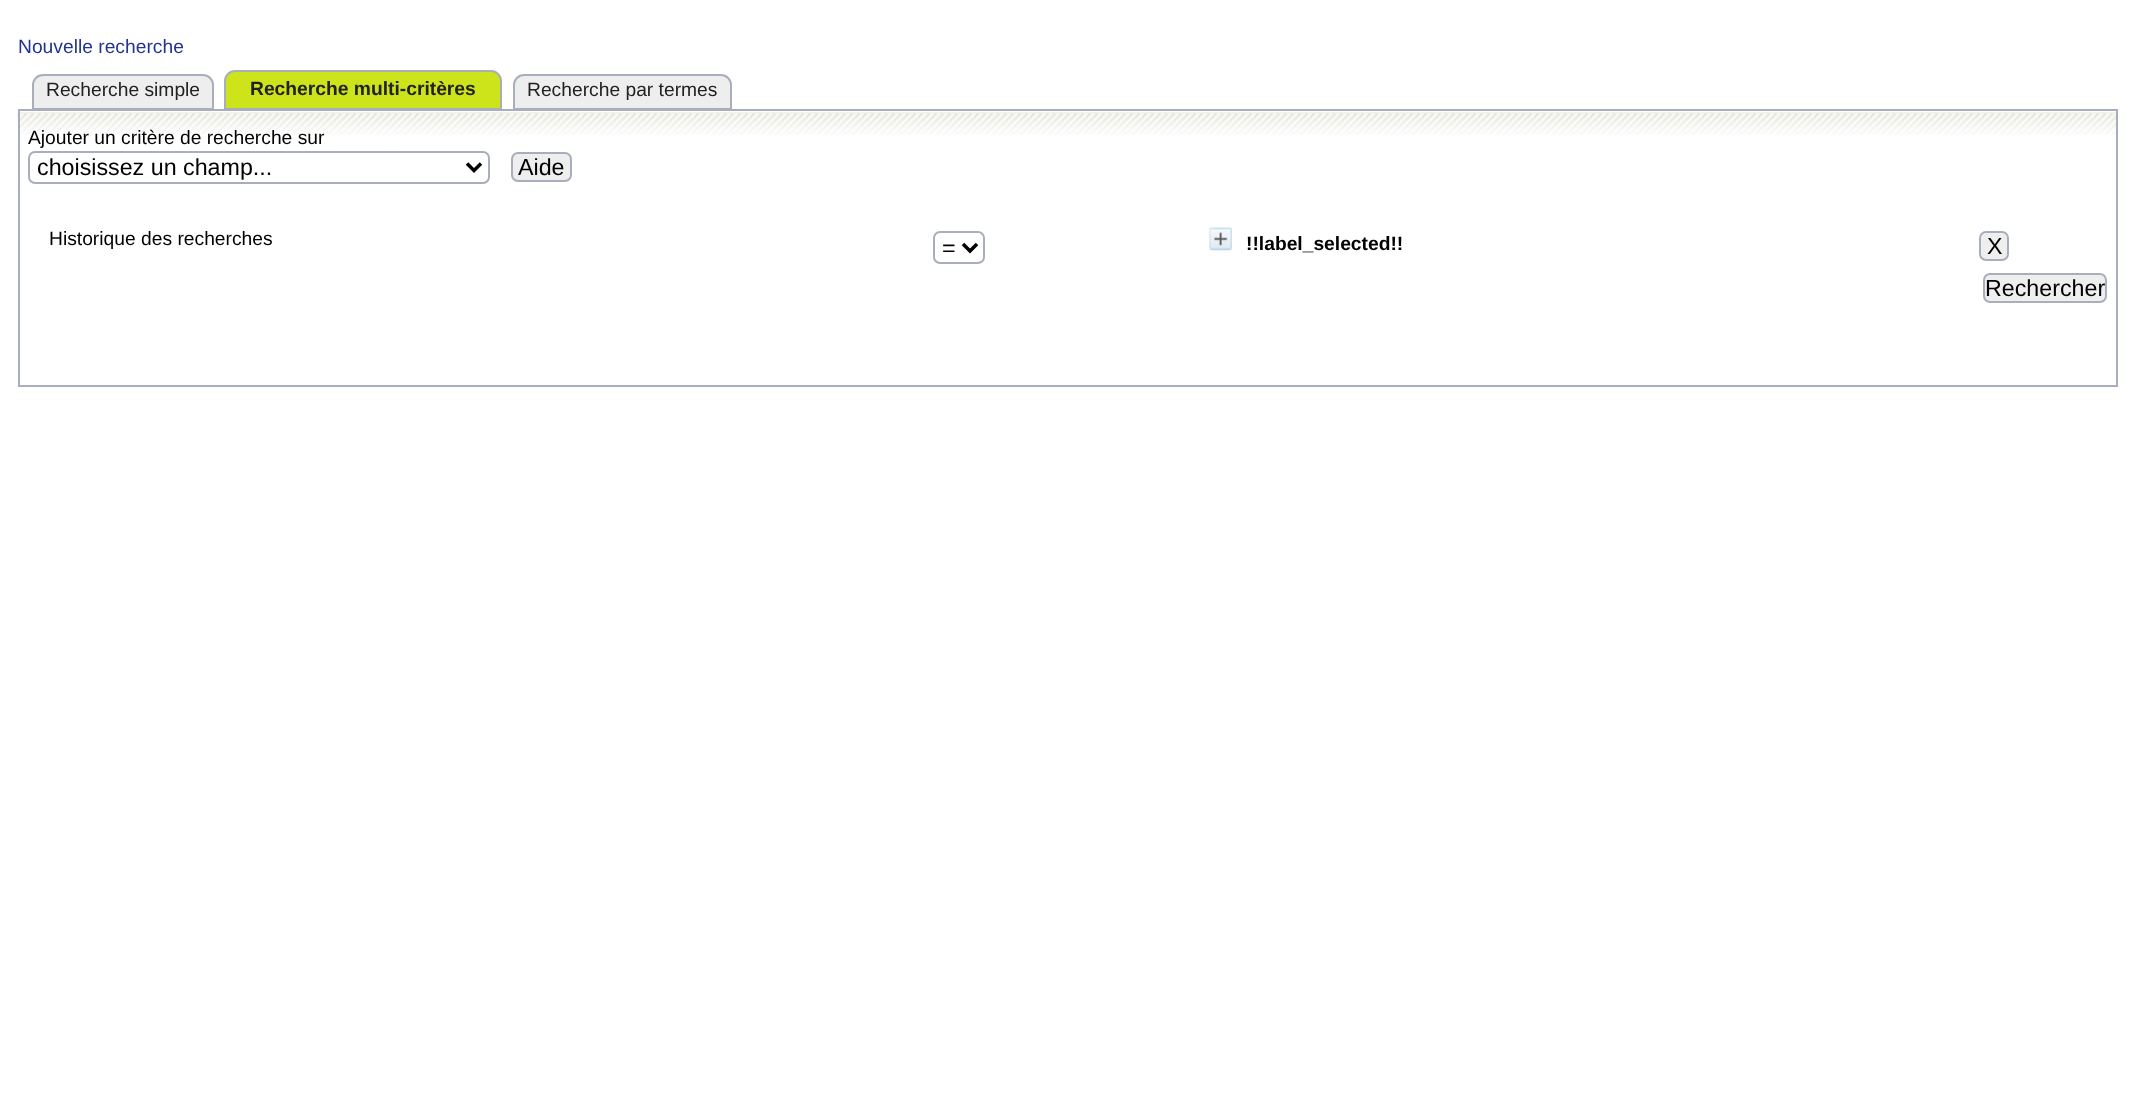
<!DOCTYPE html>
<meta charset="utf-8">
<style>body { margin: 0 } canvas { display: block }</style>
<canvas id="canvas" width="2135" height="1093"></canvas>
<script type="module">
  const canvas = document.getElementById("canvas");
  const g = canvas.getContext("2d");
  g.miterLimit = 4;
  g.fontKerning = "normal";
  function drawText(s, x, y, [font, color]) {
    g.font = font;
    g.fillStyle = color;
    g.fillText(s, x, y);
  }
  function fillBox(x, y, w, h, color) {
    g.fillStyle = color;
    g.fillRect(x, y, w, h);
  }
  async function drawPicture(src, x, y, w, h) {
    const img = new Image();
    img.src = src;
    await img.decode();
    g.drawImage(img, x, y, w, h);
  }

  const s1 = ["19.25px Liberation Sans", "#23338F"];
  const s2 = ["19.25px Liberation Sans", "#222222"];
  const s3 = ["bold 19.25px Liberation Sans", "#222222"];
  const s4 = ["19.25px Liberation Sans", "#000000"];
  const s5 = ["23.25px Liberation Sans", "#000000"];
  const s6 = ["bold 19.25px Liberation Sans", "#000000"];

  fillBox(0, 0, 2135, 1093, "#FFFFFF");
  drawText("Nouvelle recherche", 18, 53, s1);
  await drawPicture("pic1.png", 17, 112, 2099, 23);
  g.strokeStyle = "#A8AEBC";
  g.lineWidth = 2;
  g.strokeRect(19, 110, 2098, 276);
  g.fillStyle = "#EEEEEE";
  g.beginPath();
  g.roundRect(33, 75, 180, 34, [10, 10, 0, 0]);
  g.fill();
  g.stroke();
  drawText("Recherche simple", 46, 96, s2);
  g.fillStyle = "#CDE41A";
  g.beginPath();
  g.roundRect(225, 71, 276, 38, [10, 10, 0, 0]);
  g.fill();
  g.stroke();
  drawText("Recherche multi-critères", 250, 95, s3);
  g.fillStyle = "#EEEEEE";
  g.beginPath();
  g.roundRect(514, 75, 217, 34, [10, 10, 0, 0]);
  g.fill();
  g.stroke();
  drawText("Recherche par termes", 527, 96, s2);
  drawText("Ajouter un critère de recherche sur", 28, 144, s4);
  g.beginPath();
  g.roundRect(29, 152, 460, 31, 6);
  g.stroke();
  g.beginPath();
  g.moveTo(467, 163.5);
  g.lineTo(474, 170.5);
  g.lineTo(481, 163.5);
  g.strokeStyle = "#000000";
  g.lineWidth = 3.5;
  g.stroke();
  drawText("choisissez un champ...", 37, 175, s5);
  g.fillStyle = "#EEEEEE";
  g.beginPath();
  g.roundRect(512, 153, 59, 28, 6);
  g.fill();
  g.strokeStyle = "#A8AEBC";
  g.lineWidth = 2;
  g.stroke();
  drawText("Aide", 518, 175, s5);
  drawText("Historique des recherches", 49, 245, s4);
  g.beginPath();
  g.roundRect(934, 232, 50, 31, 6);
  g.stroke();
  g.beginPath();
  g.moveTo(963, 244);
  g.lineTo(970, 251);
  g.lineTo(977, 244);
  g.strokeStyle = "#000000";
  g.lineWidth = 3.5;
  g.stroke();
  drawText("=", 942, 256, s5);
  await drawPicture("pic2.png", 1209, 227, 23, 24);
  drawText("!!label_selected!!", 1246, 250, s6);
  g.fillStyle = "#EEEEEE";
  g.beginPath();
  g.roundRect(1980, 232, 28, 28, 6);
  g.fill();
  g.strokeStyle = "#A8AEBC";
  g.lineWidth = 2;
  g.stroke();
  drawText("X", 1987, 254, s5);
  g.fillStyle = "#EEEEEE";
  g.beginPath();
  g.roundRect(1984, 274, 122, 28, 6);
  g.fill();
  g.stroke();
  drawText("Rechercher", 1985, 296, s5);
</script>
